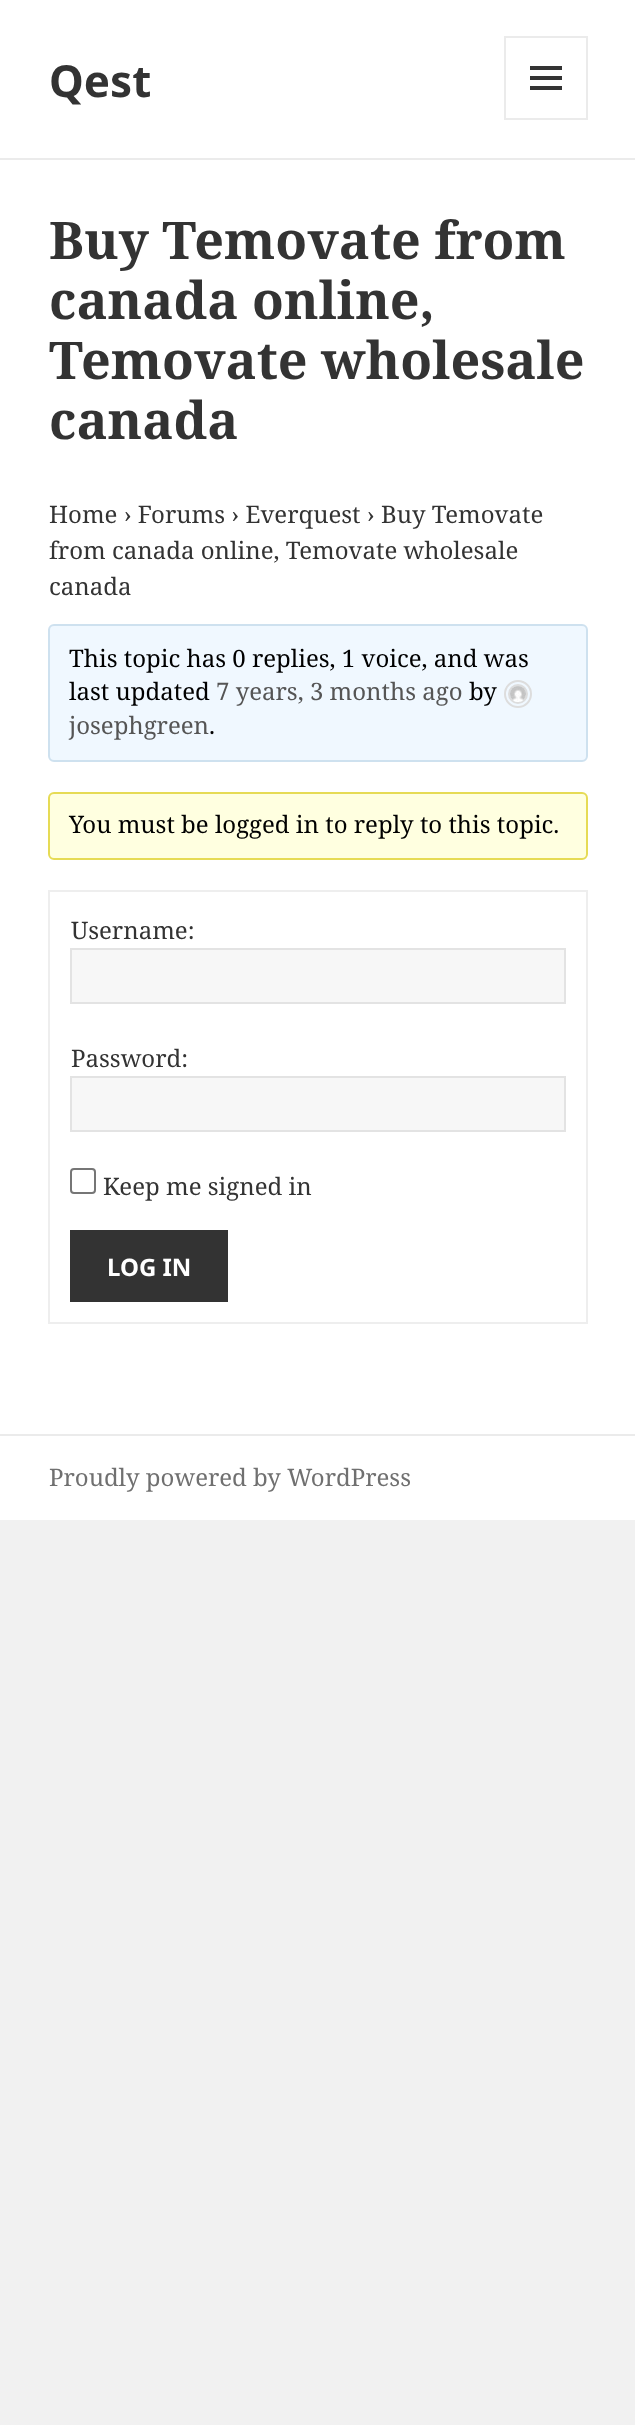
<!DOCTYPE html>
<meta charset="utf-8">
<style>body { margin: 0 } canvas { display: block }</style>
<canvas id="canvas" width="635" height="2425"></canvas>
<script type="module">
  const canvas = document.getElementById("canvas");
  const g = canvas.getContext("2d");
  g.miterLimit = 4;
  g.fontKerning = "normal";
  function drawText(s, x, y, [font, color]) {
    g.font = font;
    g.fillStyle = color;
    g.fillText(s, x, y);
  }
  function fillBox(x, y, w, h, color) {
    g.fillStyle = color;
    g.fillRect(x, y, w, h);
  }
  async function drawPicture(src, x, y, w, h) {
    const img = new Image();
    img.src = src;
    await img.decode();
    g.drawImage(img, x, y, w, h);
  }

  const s1 = ["bold 44px Noto Sans", "#333333"];
  const s2 = ["bold 52px Noto Serif", "#333333"];
  const s3 = ["24px Noto Serif", "#333333"];
  const s4 = ["24px Noto Serif", "#000000"];
  const s5 = ["24px Noto Serif", "#555555"];
  const s6 = ["bold 24px Noto Sans", "#FFFFFF"];
  const s7 = ["24px Noto Serif", "#707070"];

  fillBox(0, 0, 635, 2425, "#F1F1F1");
  fillBox(0, 0, 635, 158, "#FFFFFF");
  fillBox(0, 158, 635, 2, "#EBEBEB");
  drawText("Qest", 49, 97, s1);
  g.strokeStyle = "#EBEBEB";
  g.lineWidth = 2;
  g.strokeRect(505, 37, 82, 82);
  await drawPicture("pic1.png", 530, 66, 32, 24);
  fillBox(0, 160, 635, 1274, "#FFFFFF");
  drawText("Buy Temovate from", 49, 259, s2);
  drawText("canada online,", 49, 319, s2);
  drawText("Temovate wholesale", 49, 379, s2);
  drawText("canada", 49, 439, s2);
  drawText("Home › Forums › Everquest › Buy Temovate", 49, 523, s3);
  drawText("from canada online, Temovate wholesale", 49, 559, s3);
  drawText("canada", 49, 595, s3);
  g.fillStyle = "#F0F8FF";
  g.beginPath();
  g.roundRect(49, 625, 538, 136, 5);
  g.fill();
  g.strokeStyle = "#CEE1EF";
  g.stroke();
  drawText("This topic has 0 replies, 1 voice, and was", 69, 667, s4);
  drawText("last updated", 69, 700, s4);
  drawText("7 years, 3 months ago", 216, 700, s5);
  drawText("by", 469, 700, s4);
  g.beginPath();
  g.arc(518, 694, 13, 0, Math.PI * 2);
  g.strokeStyle = "#DDDDDD";
  g.stroke();
  g.beginPath();
  g.arc(518, 694, 9, 0, Math.PI * 2);
  g.stroke();
  await drawPicture("pic2.png", 510, 686, 16, 16);
  drawText("josephgreen", 69, 734, s5);
  drawText(".", 209, 734, s4);
  g.fillStyle = "#FFFFE0";
  g.beginPath();
  g.roundRect(49, 793, 538, 66, 5);
  g.fill();
  g.strokeStyle = "#E6DB55";
  g.stroke();
  drawText("You must be logged in to reply to this topic.", 69, 833, s4);
  g.strokeStyle = "#EEEEEE";
  g.strokeRect(49, 891, 538, 432);
  drawText("Username:", 71, 939, s3);
  g.fillStyle = "#F7F7F7";
  g.beginPath();
  g.rect(71, 949, 494, 54);
  g.fill();
  g.strokeStyle = "#E3E3E3";
  g.stroke();
  drawText("Password:", 71, 1067, s3);
  g.fillStyle = "#F7F7F7";
  g.beginPath();
  g.rect(71, 1077, 494, 54);
  g.fill();
  g.stroke();
  g.beginPath();
  g.roundRect(71, 1169, 24, 24, 3);
  g.strokeStyle = "#767676";
  g.stroke();
  drawText("Keep me signed in", 103, 1195, s3);
  fillBox(70, 1230, 158, 72, "#333333");
  drawText("LOG IN", 107, 1276, s6);
  fillBox(0, 1436, 635, 84, "#FFFFFF");
  fillBox(0, 1434, 635, 2, "#EBEBEB");
  drawText("Proudly powered by WordPress", 49, 1486, s7);
</script>
